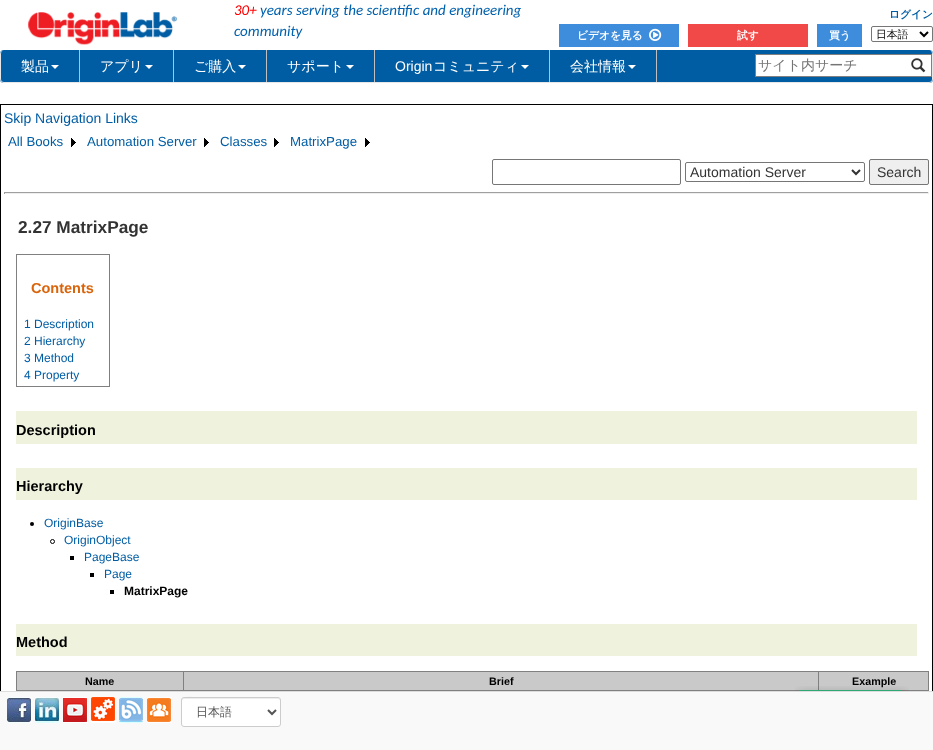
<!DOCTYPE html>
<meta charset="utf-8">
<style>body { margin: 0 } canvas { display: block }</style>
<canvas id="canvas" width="933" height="750"></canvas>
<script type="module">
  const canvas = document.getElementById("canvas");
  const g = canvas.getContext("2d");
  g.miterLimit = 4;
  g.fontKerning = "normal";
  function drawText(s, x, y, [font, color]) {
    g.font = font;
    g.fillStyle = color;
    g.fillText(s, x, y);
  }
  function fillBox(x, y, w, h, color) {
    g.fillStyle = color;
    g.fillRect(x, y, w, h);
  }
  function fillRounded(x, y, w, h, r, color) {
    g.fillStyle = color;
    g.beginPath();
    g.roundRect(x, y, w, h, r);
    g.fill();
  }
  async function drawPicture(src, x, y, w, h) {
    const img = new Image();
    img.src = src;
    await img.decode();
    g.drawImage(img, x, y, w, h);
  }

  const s1 = ["italic 15px Carlito", "#FF0000"];
  const s2 = ["italic 15px Carlito", "#0061AD"];
  const s3 = ["bold 10.75px WenQuanYi Zen Hei", "#005DA4"];
  const s4 = ["bold 10.75px WenQuanYi Zen Hei", "#FFFFFF"];
  const s5 = ["500 10.75px WenQuanYi Zen Hei", "#000000"];
  const s6 = ["500 14px WenQuanYi Zen Hei", "#FFFFFF"];
  const s7 = ["14px Liberation Sans", "#FFFFFF"];
  const s8 = ["500 14px WenQuanYi Zen Hei", "#757575"];
  const s9 = ["14px Liberation Sans", "#005DA4"];
  const s10 = ["13.25px Liberation Sans", "#005DA4"];
  const s11 = ["14px Liberation Sans", "#333333"];
  const s12 = ["bold 17.25px Liberation Sans", "#333333"];
  const s13 = ["bold 14.5px Liberation Sans", "#DA640A"];
  const s14 = ["12px Liberation Sans", "#005DA4"];
  const s15 = ["bold 14.5px Liberation Sans", "#000000"];
  const s16 = ["bold 12px Liberation Sans", "#000000"];
  const s17 = ["bold 10.75px Liberation Sans", "#000000"];
  const s18 = ["500 12px WenQuanYi Zen Hei", "#555555"];

  fillBox(0, 0, 933, 750, "#FFFFFF");
  await drawPicture("pic1.png", 28, 12, 149, 33);
  drawText("30+", 234, 15, s1);
  drawText("years serving the scientific and engineering", 260, 15, s2);
  drawText("community", 234, 36, s2);
  drawText("ログイン", 889, 18, s3);
  fillBox(559, 24, 120, 23, "#3E8DDD");
  drawText("ビデオを見る", 577, 39, s4);
  await drawPicture("pic2.png", 649, 28, 13, 13);
  fillBox(688, 24, 120, 23, "#F14947");
  drawText("試す", 737, 39, s4);
  fillBox(817, 24, 45, 23, "#3E8DDD");
  drawText("買う", 829, 39, s4);
  g.beginPath();
  g.roundRect(871.5, 26.5, 61, 15, 1.5);
  g.strokeStyle = "#767676";
  g.stroke();
  g.beginPath();
  g.moveTo(920, 32);
  g.lineTo(924, 36);
  g.lineTo(928, 32);
  g.strokeStyle = "#000000";
  g.lineWidth = 2;
  g.stroke();
  drawText("日本語", 876, 38, s5);
  fillRounded(0, 50, 933, 33, 4, "#005DA4");
  g.fillStyle = "#E7E7E7";
  g.beginPath();
  g.moveTo(4, 50);
  g.lineTo(929, 50);
  g.bezierCurveTo(931, 50, 933, 52, 933, 54);
  g.lineTo(933, 79);
  g.bezierCurveTo(933, 81, 931, 83, 929, 83);
  g.lineTo(4, 83);
  g.bezierCurveTo(2, 83, 0, 81, 0, 79);
  g.lineTo(0, 54);
  g.bezierCurveTo(0, 52, 2, 50, 4, 50);
  g.closePath();
  g.moveTo(4, 50);
  g.lineTo(929, 50);
  g.bezierCurveTo(931, 50, 932, 52, 932, 54);
  g.lineTo(932, 79);
  g.bezierCurveTo(932, 81, 931, 82, 929, 82);
  g.lineTo(4, 82);
  g.bezierCurveTo(2, 82, 1, 81, 1, 79);
  g.lineTo(1, 54);
  g.bezierCurveTo(1, 52, 2, 50, 4, 50);
  g.closePath();
  g.fill("evenodd");
  fillBox(79, 50, 1, 32, "#BFBFBF");
  drawText("製品", 21, 71, s6);
  g.beginPath();
  g.moveTo(51, 65);
  g.lineTo(59, 65);
  g.lineTo(55, 69);
  g.closePath();
  g.fill();
  fillBox(173, 50, 1, 32, "#BFBFBF");
  drawText("アプリ", 100, 71, s6);
  g.beginPath();
  g.moveTo(145, 65);
  g.lineTo(153, 65);
  g.lineTo(149, 69);
  g.closePath();
  g.fill();
  fillBox(266, 50, 1, 32, "#BFBFBF");
  drawText("ご購入", 194, 71, s6);
  g.beginPath();
  g.moveTo(238, 65);
  g.lineTo(246, 65);
  g.lineTo(242, 69);
  g.closePath();
  g.fill();
  fillBox(374, 50, 1, 32, "#BFBFBF");
  drawText("サポート", 287, 71, s6);
  g.beginPath();
  g.moveTo(346, 65);
  g.lineTo(354, 65);
  g.lineTo(350, 69);
  g.closePath();
  g.fill();
  fillBox(549, 50, 1, 32, "#BFBFBF");
  drawText("Origin", 395, 71, s7);
  drawText("コミュニティ", 433, 71, s6);
  g.beginPath();
  g.moveTo(521, 65);
  g.lineTo(529, 65);
  g.lineTo(525, 69);
  g.closePath();
  g.fill();
  fillBox(656, 50, 1, 32, "#BFBFBF");
  drawText("会社情報", 570, 71, s6);
  g.beginPath();
  g.moveTo(628, 65);
  g.lineTo(636, 65);
  g.lineTo(632, 69);
  g.closePath();
  g.fill();
  fillBox(756, 55, 175, 21, "#FFFFFF");
  fillBox(755, 54, 177, 1, "#808080");
  fillBox(755, 76, 150, 1, "#808080");
  fillBox(755, 54, 1, 23, "#808080");
  drawText("サイト内サーチ", 758, 70, s8);
  fillBox(931, 54, 1, 23, "#808080");
  fillBox(905, 76, 27, 1, "#808080");
  await drawPicture("pic3.png", 911, 58, 15, 15);
  g.lineWidth = 1;
  g.strokeRect(0.5, 104.5, 932, 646);
  drawText("Skip Navigation Links", 4, 123, s9);
  drawText("All Books", 8, 146, s10);
  await drawPicture("pic4.png", 71, 138, 5, 9);
  drawText("Automation Server", 87, 146, s10);
  await drawPicture("pic4.png", 204, 138, 5, 9);
  drawText("Classes", 220, 146, s10);
  await drawPicture("pic4.png", 274, 138, 5, 9);
  drawText("MatrixPage", 290, 146, s10);
  await drawPicture("pic4.png", 365, 138, 5, 9);
  g.beginPath();
  g.roundRect(492.5, 159.5, 188, 25, 1.5);
  g.strokeStyle = "#767676";
  g.stroke();
  g.beginPath();
  g.roundRect(685.5, 162.5, 179, 19, 1.5);
  g.stroke();
  g.beginPath();
  g.moveTo(852, 170);
  g.lineTo(856, 174);
  g.lineTo(860, 170);
  g.strokeStyle = "#333333";
  g.lineWidth = 2;
  g.stroke();
  drawText("Automation Server", 690, 177, s11);
  g.fillStyle = "#EFEFEF";
  g.beginPath();
  g.roundRect(869.5, 159.5, 59, 25, 1.5);
  g.fill();
  g.strokeStyle = "#767676";
  g.lineWidth = 1;
  g.stroke();
  drawText("Search", 877, 177, s11);
  fillBox(4, 192, 925, 1, "#9F9F9F");
  fillBox(928, 192, 1, 2, "#EEEEEE");
  fillBox(4, 193, 925, 1, "#EEEEEE");
  fillBox(4, 192, 1, 2, "#9F9F9F");
  drawText("2.27 MatrixPage", 18, 233, s12);
  g.strokeStyle = "#808080";
  g.strokeRect(16.5, 254.5, 93, 132);
  drawText("Contents", 31, 293, s13);
  drawText("1 Description", 24, 328, s14);
  drawText("2 Hierarchy", 24, 345, s14);
  drawText("3 Method", 24, 362, s14);
  drawText("4 Property", 24, 379, s14);
  fillBox(16, 411, 901, 33, "#EFF2DD");
  drawText("Description", 16, 435, s15);
  fillBox(16, 468, 901, 32, "#EFF2DD");
  drawText("Hierarchy", 16, 491, s15);
  g.beginPath();
  g.arc(32, 524, 2, 0, Math.PI * 2);
  g.fill();
  drawText("OriginBase", 44, 527, s14);
  g.beginPath();
  g.arc(52.5, 541.5, 2, 0, Math.PI * 2);
  g.strokeStyle = "#000000";
  g.stroke();
  drawText("OriginObject", 64, 544, s14);
  fillBox(70, 556, 4, 4, "#000000");
  drawText("PageBase", 84, 561, s14);
  fillBox(90, 573, 4, 4, "#000000");
  drawText("Page", 104, 578, s14);
  fillBox(110, 590, 4, 4, "#000000");
  drawText("MatrixPage", 124, 595, s16);
  fillBox(16, 624, 901, 32, "#EFF2DD");
  drawText("Method", 16, 647, s15);
  fillBox(16, 671, 913, 1, "#808080");
  fillBox(928, 671, 1, 19, "#808080");
  fillBox(16, 671, 1, 19, "#808080");
  fillBox(17, 672, 166, 18, "#C9C9C9");
  drawText("Name", 85, 685, s17);
  fillBox(184, 672, 634, 18, "#C9C9C9");
  fillBox(16, 690, 783, 1, "#808080");
  fillBox(183, 671, 1, 20, "#808080");
  drawText("Brief", 489, 685, s17);
  fillBox(819, 672, 109, 18, "#C9C9C9");
  fillBox(818, 671, 1, 20, "#808080");
  drawText("Example", 852, 685, s17);
  fillBox(901, 690, 28, 1, "#808080");
  await drawPicture("pic5.png", 795, 686, 114, 5);
  fillBox(0, 692, 933, 58, "#F9F9F9");
  fillBox(0, 691, 933, 1, "#DDDDDD");
  await drawPicture("pic6.png", 7, 697, 25, 26);
  await drawPicture("pic7.png", 35, 697, 25, 26);
  await drawPicture("pic8.png", 63, 697, 25, 26);
  await drawPicture("pic9.png", 91, 697, 25, 26);
  await drawPicture("pic10.png", 119, 697, 25, 26);
  await drawPicture("pic11.png", 147, 697, 25, 26);
  fillRounded(181, 697, 100, 30, 3, "#FFFFFF");
  g.fillStyle = "#ECECEC";
  g.beginPath();
  g.moveTo(184, 699);
  g.lineTo(278, 699);
  g.bezierCurveTo(279, 699, 280, 700, 280, 701);
  g.bezierCurveTo(280, 700, 280, 698, 278, 698);
  g.lineTo(200, 698);
  g.bezierCurveTo(198, 698, 182, 694, 182, 701);
  g.bezierCurveTo(182, 700, 183, 699, 184, 699);
  g.closePath();
  g.fill();
  g.beginPath();
  g.roundRect(181.5, 697.5, 99, 29, 2.5);
  g.strokeStyle = "#CCCCCC";
  g.stroke();
  g.beginPath();
  g.moveTo(268, 710);
  g.lineTo(272, 714);
  g.lineTo(276, 710);
  g.strokeStyle = "#555555";
  g.lineWidth = 2;
  g.stroke();
  drawText("日本語", 196, 716, s18);
</script>
